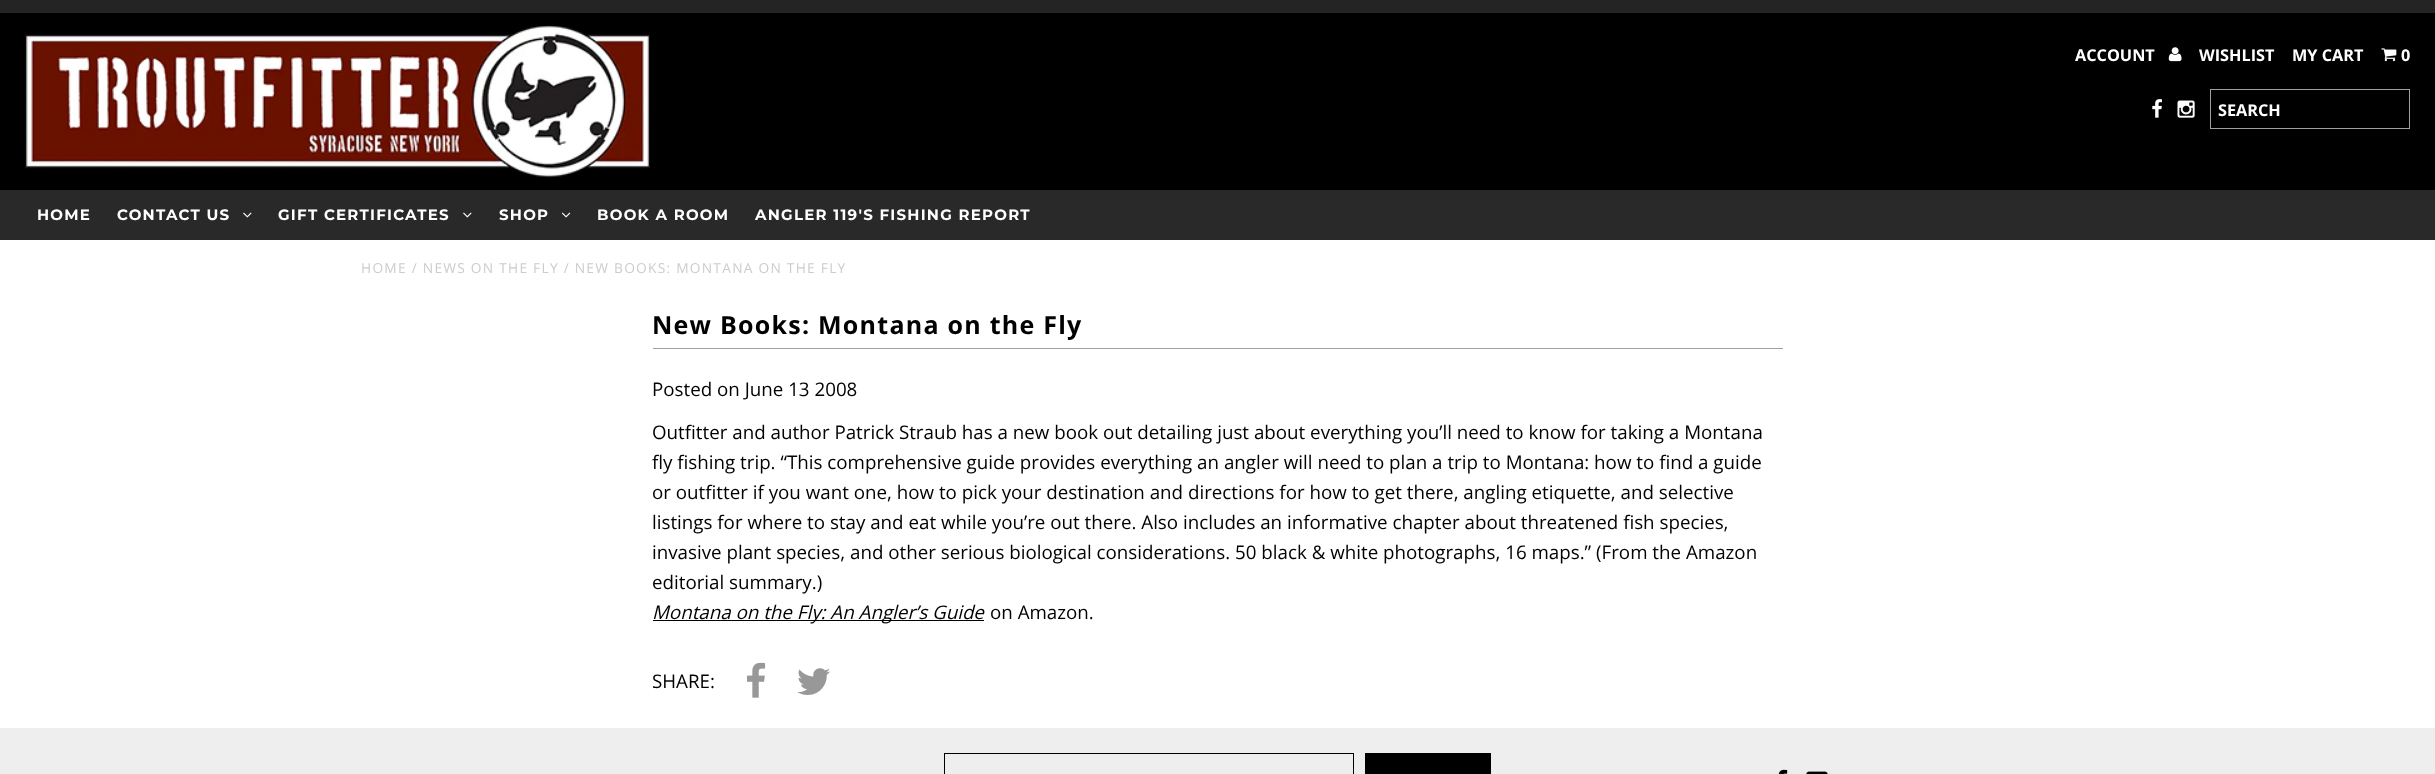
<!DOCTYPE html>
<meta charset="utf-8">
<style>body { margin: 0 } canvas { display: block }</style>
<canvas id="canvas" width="2435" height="774"></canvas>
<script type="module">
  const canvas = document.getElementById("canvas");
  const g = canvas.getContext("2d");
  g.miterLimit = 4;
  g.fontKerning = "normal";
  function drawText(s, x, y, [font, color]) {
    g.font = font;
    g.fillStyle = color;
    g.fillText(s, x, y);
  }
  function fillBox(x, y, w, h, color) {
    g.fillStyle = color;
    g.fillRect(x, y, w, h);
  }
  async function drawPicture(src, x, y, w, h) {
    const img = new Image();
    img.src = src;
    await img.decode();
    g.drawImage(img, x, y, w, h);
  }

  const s1 = ["bold 16.25px Open Sans", "#FFFFFF"];
  const s2 = ["bold 15px Montserrat", "#FFFFFF"];
  const s3 = ["13.75px Open Sans", "#CCCCCC"];
  const s4 = ["bold 25px Open Sans", "#000000"];
  const s5 = ["18.75px Open Sans", "#000000"];
  const s6 = ["italic 18.75px Open Sans", "#000000"];

  fillBox(0, 0, 2435, 774, "#FFFFFF");
  fillBox(0, 0, 2435, 13, "#252424");
  fillBox(0, 13, 2435, 177, "#000000");
  await drawPicture("pic1.png", 25, 25, 625, 153);
  drawText("ACCOUNT", 2075, 61, s1);
  await drawPicture("pic2.png", 2168, 47, 14, 15);
  drawText("WISHLIST", 2199, 61, s1);
  drawText("MY CART", 2292, 61, s1);
  await drawPicture("pic3.png", 2381, 48, 16, 14);
  drawText("0", 2401, 61, s1);
  await drawPicture("pic4.png", 2152, 99, 10, 19);
  await drawPicture("pic5.png", 2177, 100, 18, 18);
  g.strokeStyle = "#A0A0A0";
  g.strokeRect(2210.5, 89.5, 199, 39);
  drawText("SEARCH", 2218, 116, s1);
  fillBox(0, 190, 2435, 50, "#292929");
  g.letterSpacing = "1.25px";
  drawText("HOME", 37, 220, s2);
  drawText("CONTACT US", 117, 220, s2);
  await drawPicture("pic6.png", 243, 212, 9, 6);
  drawText("GIFT CERTIFICATES", 278, 220, s2);
  await drawPicture("pic6.png", 463, 212, 9, 6);
  drawText("SHOP", 499, 220, s2);
  await drawPicture("pic7.png", 561, 212, 10, 6);
  drawText("BOOK A ROOM", 597, 220, s2);
  drawText("ANGLER 119'S FISHING REPORT", 755, 220, s2);
  drawText("HOME / NEWS ON THE FLY / NEW BOOKS: MONTANA ON THE FLY", 361, 273, s3);
  fillBox(653, 348, 1130, 1, "#A0A0A0");
  drawText("New Books: Montana on the Fly", 652, 334, s4);
  g.letterSpacing = "0px";
  drawText("Posted on June 13 2008", 652, 396, s5);
  drawText("Outfitter and author Patrick Straub has a new book out detailing just about everything you’ll need to know for taking a Montana", 652, 439, s5);
  drawText("fly fishing trip. “This comprehensive guide provides everything an angler will need to plan a trip to Montana: how to find a guide", 652, 469, s5);
  drawText("or outfitter if you want one, how to pick your destination and directions for how to get there, angling etiquette, and selective", 652, 499, s5);
  drawText("listings for where to stay and eat while you’re out there. Also includes an informative chapter about threatened fish species,", 652, 529, s5);
  drawText("invasive plant species, and other serious biological considerations. 50 black & white photographs, 16 maps.” (From the Amazon", 652, 559, s5);
  drawText("editorial summary.)", 652, 589, s5);
  fillBox(653, 620, 331, 1, "#000000");
  drawText("Montana on the Fly: An Angler’s Guide", 652, 619, s6);
  drawText("on Amazon.", 990, 619, s5);
  drawText("SHARE:", 652, 688, s5);
  await drawPicture("pic8.png", 747, 662, 19, 36);
  await drawPicture("pic9.png", 797, 668, 33, 27);
  fillBox(0, 728, 2435, 46, "#EEEEEE");
  g.strokeStyle = "#000000";
  g.strokeRect(944.5, 753.5, 409, 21);
  fillBox(1365, 753, 126, 21, "#000000");
  await drawPicture("pic10.png", 1778, 769, 10, 5);
  await drawPicture("pic11.png", 1806, 771, 22, 3);
</script>
